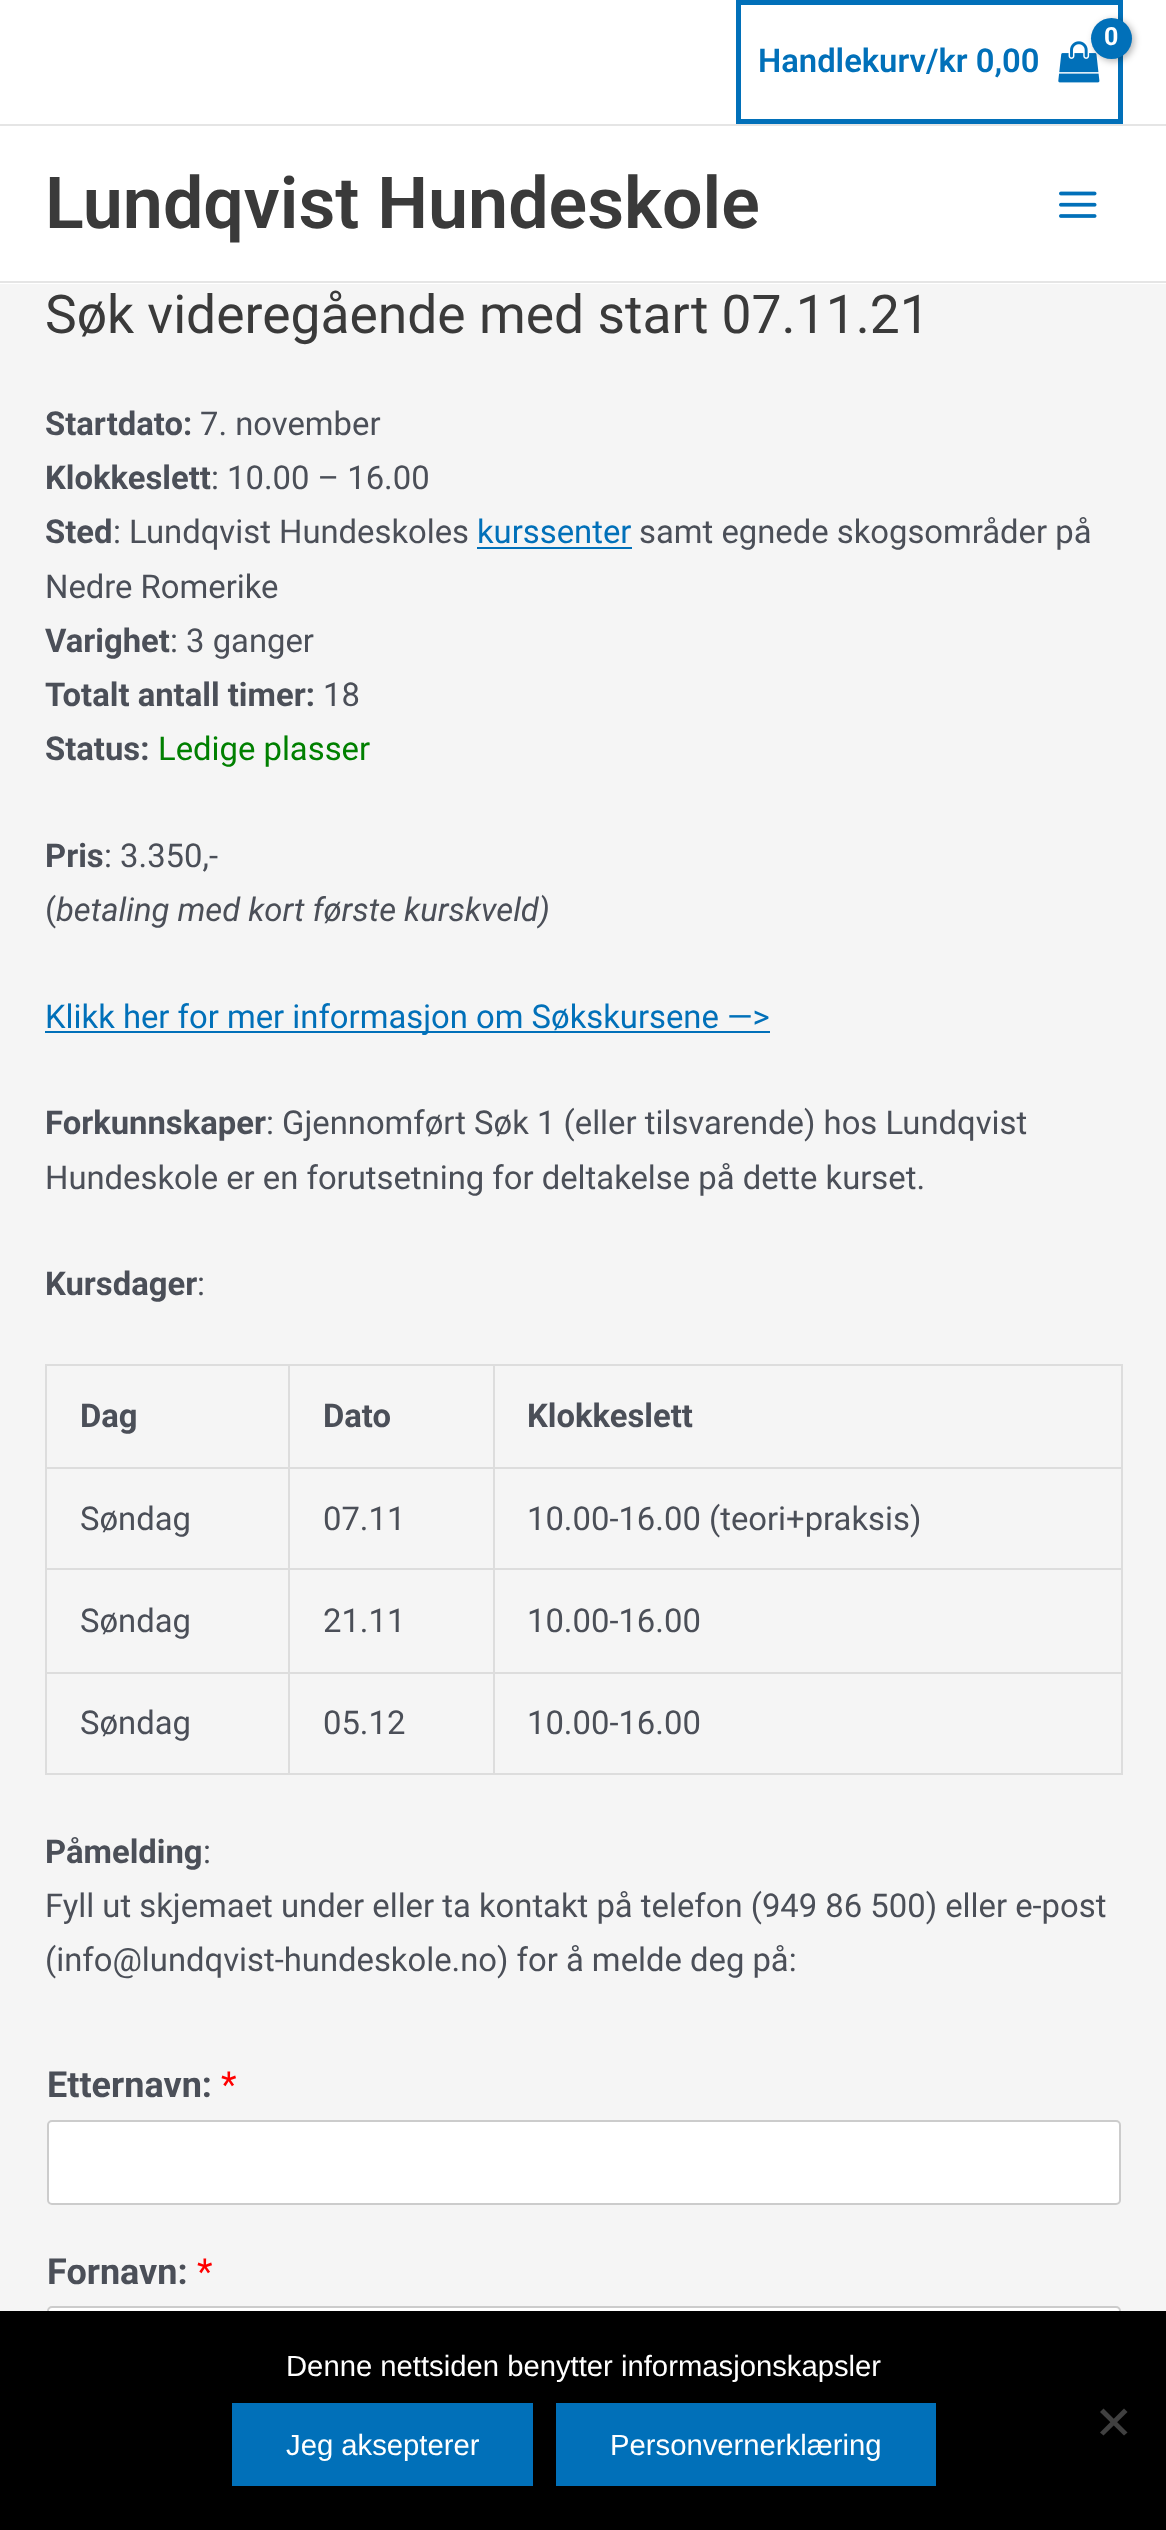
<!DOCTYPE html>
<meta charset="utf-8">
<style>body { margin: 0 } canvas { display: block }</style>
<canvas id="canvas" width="1166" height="2530"></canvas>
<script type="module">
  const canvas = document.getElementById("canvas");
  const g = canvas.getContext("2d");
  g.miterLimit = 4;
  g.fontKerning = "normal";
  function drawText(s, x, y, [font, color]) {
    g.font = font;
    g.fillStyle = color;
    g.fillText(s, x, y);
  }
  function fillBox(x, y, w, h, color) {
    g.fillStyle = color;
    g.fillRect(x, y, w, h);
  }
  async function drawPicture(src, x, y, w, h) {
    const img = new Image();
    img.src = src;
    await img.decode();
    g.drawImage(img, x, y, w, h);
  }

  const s1 = ["bold 25px Roboto", "#FFFFFF"];
  const s2 = ["600 32.8px Roboto", "#0170B9"];
  const s3 = ["600 71.75px Roboto", "#3A3A3A"];
  const s4 = ["53.4px Roboto", "#3A3A3A"];
  const s5 = ["bold 32.8px Roboto", "#4B4F58"];
  const s6 = ["32.8px Roboto", "#4B4F58"];
  const s7 = ["32.8px Roboto", "#0170B9"];
  const s8 = ["32.8px Roboto", "#008000"];
  const s9 = ["italic 32.8px Roboto", "#4B4F58"];
  const s10 = ["bold 36px Roboto", "#4B4F58"];
  const s11 = ["36px Roboto", "#FF0000"];
  const s12 = ["29.25px Liberation Sans", "#FFFFFF"];

  fillBox(0, 0, 1166, 2530, "#F5F5F5");
  fillBox(0, 0, 1166, 124, "#FFFFFF");
  fillBox(0, 124, 1166, 2, "#E5E5E5");
  g.strokeStyle = "#0170B9";
  g.lineWidth = 5;
  g.strokeRect(738.5, 2.5, 382, 119);
  await drawPicture("pic1.png", 1058, 41, 42, 42);
  g.fillStyle = "rgba(0, 0, 0, 0.3)";
  g.filter = "blur(3.5px)";
  g.beginPath();
  g.roundRect(1094, 20, 40, 41, 20);
  g.fill();
  g.filter = "none";
  g.fillStyle = "#0170B9";
  g.beginPath();
  g.arc(1111.5, 38.5, 20.5, 0, Math.PI * 2);
  g.fill();
  g.letterSpacing = "-1px";
  drawText("0", 1104, 45, s1);
  g.letterSpacing = "0px";
  drawText("Handlekurv/kr 0,00", 758, 72, s2);
  fillBox(0, 126, 1166, 158, "#FFFFFF");
  fillBox(0, 281, 1166, 2, "#E5E5E5");
  drawText("Lundqvist Hundeskole", 45, 228, s3);
  await drawPicture("pic2.png", 1059, 191, 38, 27);
  drawText("Søk videregående med start 07.11.21", 45, 333, s4);
  drawText("Startdato:", 45, 435, s5);
  drawText("7. november", 200, 435, s6);
  drawText("Klokkeslett", 45, 489, s5);
  drawText(": 10.00 – 16.00", 211, 489, s6);
  drawText("Sted", 45, 543, s5);
  drawText(": Lundqvist Hundeskoles", 113, 543, s6);
  drawText("kurssenter", 477, 543, s7);
  fillBox(477, 547, 155, 2, "#0170B9");
  drawText("samt egnede skogsområder på", 639, 543, s6);
  drawText("Nedre Romerike", 45, 598, s6);
  drawText("Varighet", 45, 652, s5);
  drawText(": 3 ganger", 170, 652, s6);
  drawText("Totalt antall timer:", 45, 706, s5);
  drawText("18", 323, 706, s6);
  drawText("Status:", 45, 760, s5);
  drawText("Ledige plasser", 158, 760, s8);
  drawText("Pris", 45, 867, s5);
  drawText(": 3.350,-", 104, 867, s6);
  drawText("(", 45, 921, s6);
  drawText("betaling med kort første kurskveld)", 56, 921, s9);
  fillBox(45, 1031, 725, 2, "#0170B9");
  drawText("Klikk her for mer informasjon om Søkskursene —>", 45, 1028, s7);
  drawText("Forkunnskaper", 45, 1134, s5);
  drawText(": Gjennomført Søk 1 (eller tilsvarende) hos Lundqvist", 266, 1134, s6);
  drawText("Hundeskole er en forutsetning for deltakelse på dette kurset.", 45, 1189, s6);
  drawText("Kursdager", 45, 1295, s5);
  drawText(":", 197, 1295, s6);
  fillBox(45, 1364, 1078, 2, "#DDDDDD");
  fillBox(45, 1364, 2, 411, "#DDDDDD");
  fillBox(288, 1366, 2, 409, "#DDDDDD");
  fillBox(47, 1467, 243, 2, "#DDDDDD");
  drawText("Dag", 80, 1427, s5);
  fillBox(493, 1366, 2, 409, "#DDDDDD");
  fillBox(290, 1467, 205, 2, "#DDDDDD");
  drawText("Dato", 323, 1427, s5);
  fillBox(1121, 1366, 2, 409, "#DDDDDD");
  fillBox(495, 1467, 628, 2, "#DDDDDD");
  drawText("Klokkeslett", 527, 1427, s5);
  fillBox(47, 1568, 1076, 2, "#DDDDDD");
  drawText("Søndag", 80, 1530, s6);
  drawText("07.11", 323, 1530, s6);
  drawText("10.00-16.00 (teori+praksis)", 527, 1530, s6);
  fillBox(47, 1672, 1076, 2, "#DDDDDD");
  drawText("Søndag", 80, 1632, s6);
  drawText("21.11", 323, 1632, s6);
  drawText("10.00-16.00", 527, 1632, s6);
  fillBox(47, 1773, 1076, 2, "#DDDDDD");
  drawText("Søndag", 80, 1734, s6);
  drawText("05.12", 323, 1734, s6);
  drawText("10.00-16.00", 527, 1734, s6);
  drawText("Påmelding", 45, 1863, s5);
  drawText(":", 203, 1863, s6);
  drawText("Fyll ut skjemaet under eller ta kontakt på telefon (949 86 500) eller e-post", 45, 1917, s6);
  drawText("(info@lundqvist-hundeskole.no) for å melde deg på:", 45, 1971, s6);
  drawText("Etternavn:", 47, 2097, s10);
  drawText("*", 221, 2097, s11);
  g.fillStyle = "#FFFFFF";
  g.beginPath();
  g.roundRect(48, 2121, 1072, 83, 4);
  g.fill();
  g.strokeStyle = "#CCCCCC";
  g.lineWidth = 2;
  g.stroke();
  drawText("Fornavn:", 47, 2284, s10);
  drawText("*", 197, 2284, s11);
  g.fillStyle = "#FFFFFF";
  g.beginPath();
  g.roundRect(48, 2307, 1072, 84, 4);
  g.fill();
  g.stroke();
  fillBox(0, 2311, 1166, 219, "#000000");
  drawText("Denne nettsiden benytter informasjonskapsler", 286, 2376, s12);
  g.fillStyle = "#404040";
  g.beginPath();
  g.moveTo(1124, 2408.5);
  g.lineTo(1127.5, 2412);
  g.lineTo(1103.5, 2435.5);
  g.lineTo(1100, 2432.5);
  g.closePath();
  g.fill();
  g.beginPath();
  g.moveTo(1100, 2412);
  g.lineTo(1103.5, 2408.5);
  g.lineTo(1127.5, 2432.5);
  g.lineTo(1124, 2435.5);
  g.closePath();
  g.fill();
  fillBox(232, 2403, 301, 83, "#0170B9");
  drawText("Jeg aksepterer", 286, 2455, s12);
  fillBox(556, 2403, 380, 83, "#0170B9");
  drawText("Personvernerklæring", 610, 2455, s12);
</script>
